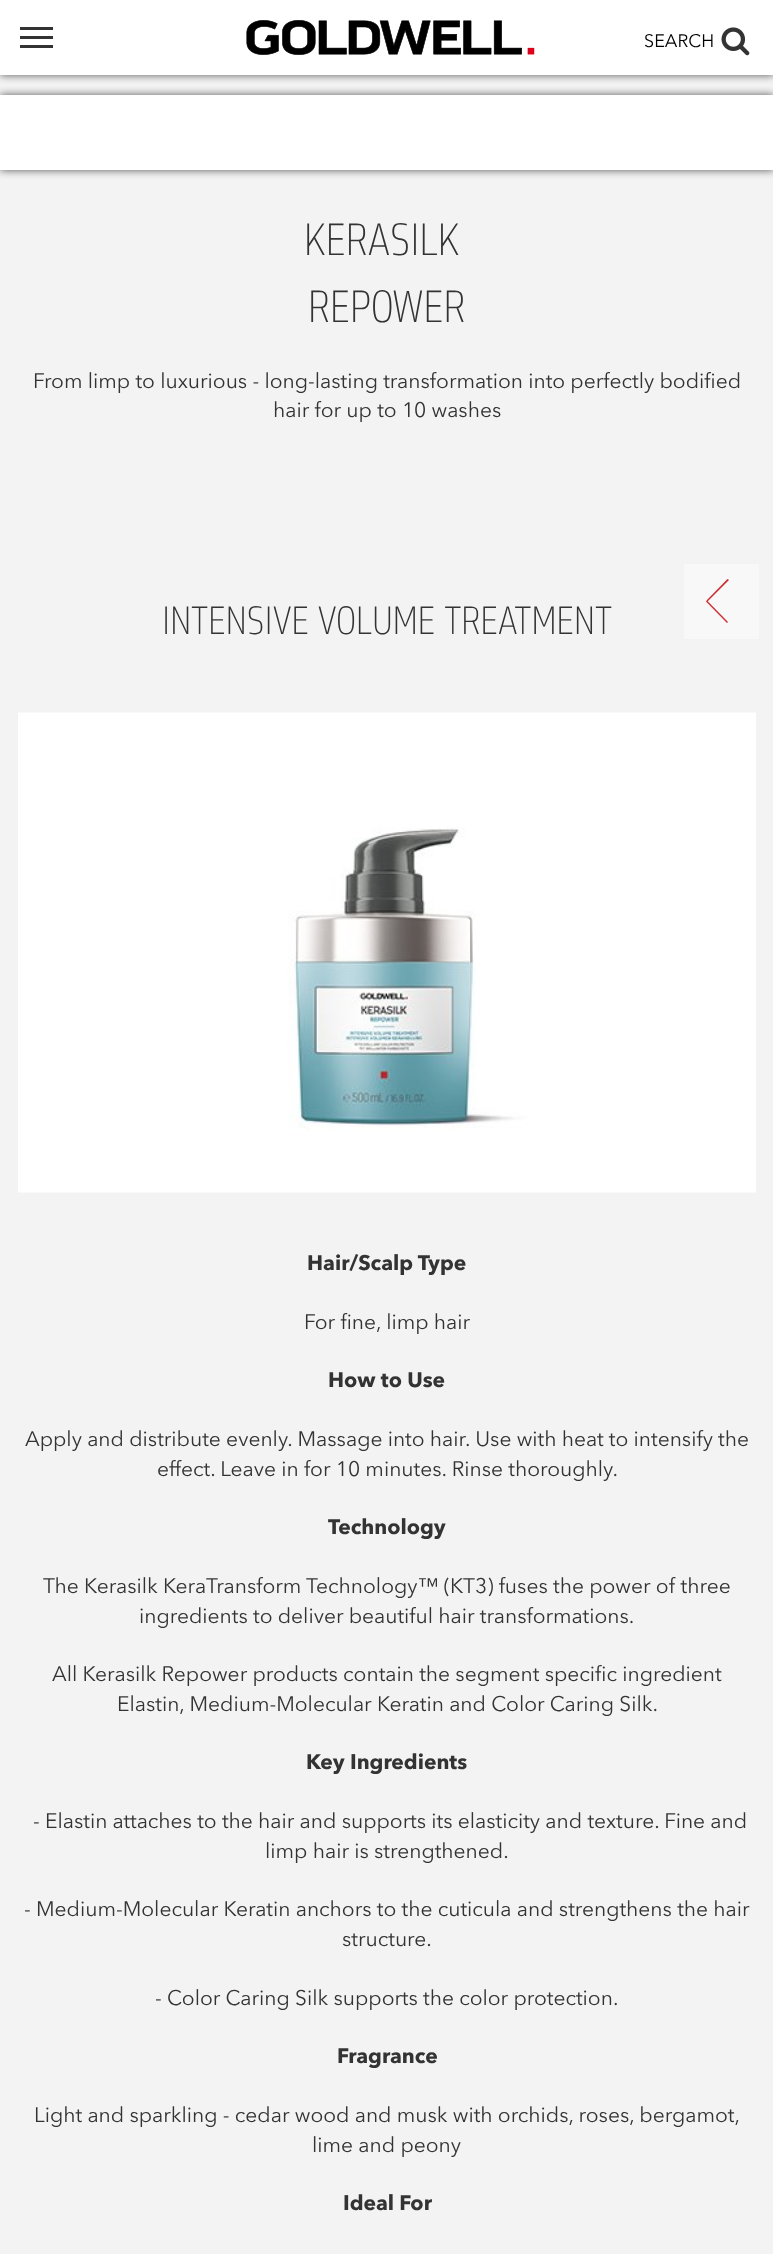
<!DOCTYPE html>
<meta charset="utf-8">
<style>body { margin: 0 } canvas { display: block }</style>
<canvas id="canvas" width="773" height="2254"></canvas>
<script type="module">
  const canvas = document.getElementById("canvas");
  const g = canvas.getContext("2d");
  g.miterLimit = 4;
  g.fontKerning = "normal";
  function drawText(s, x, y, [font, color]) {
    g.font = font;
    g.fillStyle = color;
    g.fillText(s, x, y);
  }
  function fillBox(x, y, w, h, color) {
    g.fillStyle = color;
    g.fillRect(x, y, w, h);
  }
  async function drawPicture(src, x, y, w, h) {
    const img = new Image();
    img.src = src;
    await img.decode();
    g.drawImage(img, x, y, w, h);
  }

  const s1 = ["18px Avenir", "#000000"];
  const s2 = ["100 48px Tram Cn", "#333333"];
  const s3 = ["21px Avenir", "#333333"];
  const s4 = ["100 42px Tram Cn", "#333333"];
  const s5 = ["bold 21px Avenir", "#333333"];

  fillBox(0, 0, 773, 2254, "#F3F3F3");
  g.fillStyle = "#555555";
  g.filter = "blur(4px)";
  g.beginPath();
  g.rect(0, 95, 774, 75);
  g.fill();
  g.filter = "none";
  fillBox(0, 95, 773, 75, "#FFFFFF");
  g.fillStyle = "#555555";
  g.filter = "blur(4px)";
  g.beginPath();
  g.rect(0, 0, 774, 75);
  g.fill();
  g.filter = "none";
  fillBox(0, 0, 773, 75, "#FFFFFF");
  fillBox(20, 27, 33, 3, "#333333");
  fillBox(20, 36, 33, 3, "#333333");
  fillBox(20, 45, 33, 3, "#333333");
  await drawPicture("pic1.png", 246, 20, 289, 35);
  drawText("SEARCH", 644, 47, s1);
  await drawPicture("pic2.png", 721, 27, 29, 29);
  drawText("KERASILK", 304, 255, s2);
  drawText("REPOWER", 308, 322, s2);
  drawText("From limp to luxurious - long-lasting transformation into perfectly bodified", 33, 388, s3);
  drawText("hair for up to 10 washes", 273, 417, s3);
  drawText("INTENSIVE VOLUME TREATMENT", 162, 634, s4);
  await drawPicture("pic3.png", 18, 712, 738, 481);
  drawText("Hair/Scalp Type", 307, 1270, s5);
  drawText("For fine, limp hair", 304, 1329, s3);
  drawText("How to Use", 328, 1387, s5);
  drawText("Apply and distribute evenly. Massage into hair. Use with heat to intensify the", 25, 1446, s3);
  drawText("effect. Leave in for 10 minutes. Rinse thoroughly.", 157, 1476, s3);
  drawText("Technology", 328, 1534, s5);
  drawText("The Kerasilk KeraTransform Technology™ (KT3) fuses the power of three", 43, 1593, s3);
  drawText("ingredients to deliver beautiful hair transformations.", 139, 1623, s3);
  drawText("All Kerasilk Repower products contain the segment specific ingredient", 52, 1681, s3);
  drawText("Elastin, Medium-Molecular Keratin and Color Caring Silk.", 117, 1711, s3);
  drawText("Key Ingredients", 306, 1769, s5);
  drawText("- Elastin attaches to the hair and supports its elasticity and texture. Fine and", 33, 1828, s3);
  drawText("limp hair is strengthened.", 265, 1858, s3);
  drawText("- Medium-Molecular Keratin anchors to the cuticula and strengthens the hair", 24, 1916, s3);
  drawText("structure.", 342, 1946, s3);
  drawText("- Color Caring Silk supports the color protection.", 155, 2005, s3);
  drawText("Fragrance", 337, 2063, s5);
  drawText("Light and sparkling - cedar wood and musk with orchids, roses, bergamot,", 34, 2122, s3);
  drawText("lime and peony", 312, 2152, s3);
  drawText("Ideal For", 343, 2210, s5);
  fillBox(684, 564, 75, 75, "#F8F8F8");
  g.fillStyle = "#CC2D30";
  g.beginPath();
  g.moveTo(707, 600.5);
  g.lineTo(728, 622);
  g.lineTo(727, 623);
  g.lineTo(706, 601.5);
  g.closePath();
  g.fill();
  g.beginPath();
  g.moveTo(706.5, 600.5);
  g.lineTo(727.5, 579);
  g.lineTo(729, 580);
  g.lineTo(707.5, 601.5);
  g.closePath();
  g.fill();
</script>
